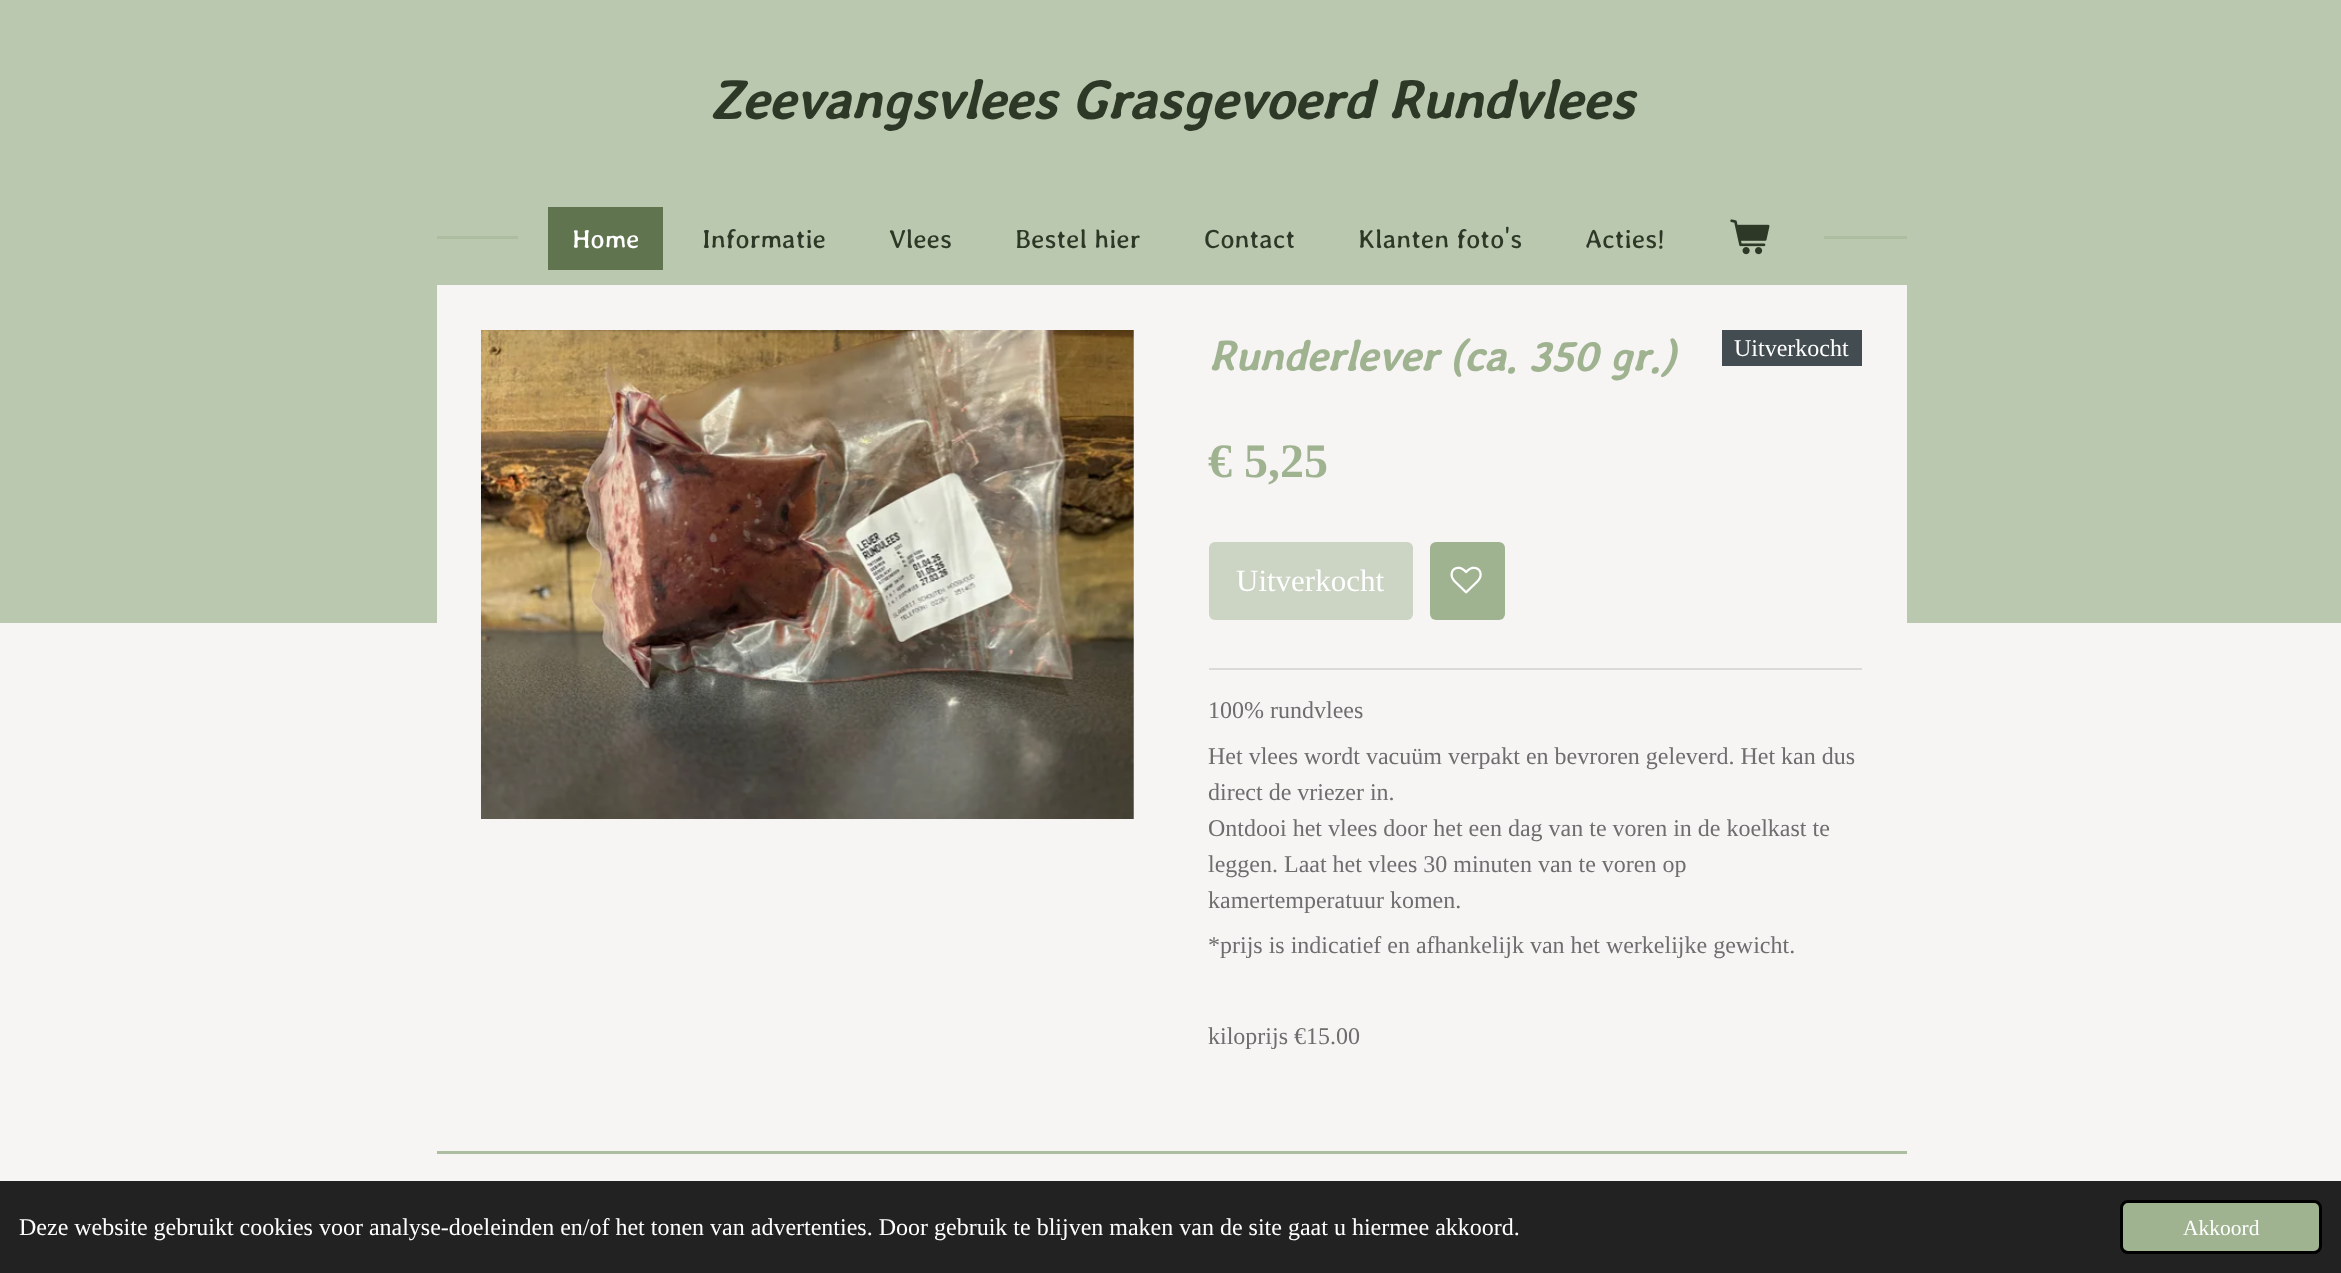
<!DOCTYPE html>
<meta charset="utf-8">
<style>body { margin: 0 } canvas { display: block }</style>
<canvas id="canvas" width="2341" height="1273"></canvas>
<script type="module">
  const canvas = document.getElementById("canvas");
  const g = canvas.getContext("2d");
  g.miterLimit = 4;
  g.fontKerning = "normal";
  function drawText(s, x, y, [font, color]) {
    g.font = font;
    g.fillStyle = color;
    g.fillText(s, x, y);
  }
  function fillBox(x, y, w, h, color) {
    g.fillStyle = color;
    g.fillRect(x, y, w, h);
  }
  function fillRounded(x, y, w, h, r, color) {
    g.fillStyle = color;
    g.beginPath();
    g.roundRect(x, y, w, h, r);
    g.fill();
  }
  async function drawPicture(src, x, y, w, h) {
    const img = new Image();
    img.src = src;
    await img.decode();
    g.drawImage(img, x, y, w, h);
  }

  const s1 = ["italic bold 61.25px Stylish", "#2E3827"];
  const s2 = ["30px Stylish", "#FFFFFF"];
  const s3 = ["30px Stylish", "#2E3827"];
  const s4 = ["italic bold 48px Stylish", "#A0B391"];
  const s5 = ["24px Liberation Serif", "#FFFFFF"];
  const s6 = ["bold 48px Liberation Serif", "#A0B391"];
  const s7 = ["31px Liberation Serif", "#FFFFFF"];
  const s8 = ["24px Liberation Serif", "#6F6E6E"];
  const s9 = ["21.5px Liberation Serif", "#FFFFFF"];

  fillBox(0, 0, 2341, 1273, "#F7F4F4");
  fillBox(0, 0, 2341, 623, "#BAC8AF");
  drawText("Zeevangsvlees Grasgevoerd Rundvlees", 709, 119, s1);
  fillBox(437, 236, 81, 3, "#ADBEA0");
  fillBox(548, 207, 115, 63, "#607450");
  drawText("Home", 572, 248, s2);
  drawText("Informatie", 702, 248, s3);
  drawText("Vlees", 889, 248, s3);
  drawText("Bestel hier", 1015, 248, s3);
  drawText("Contact", 1204, 248, s3);
  drawText("Klanten foto's", 1358, 248, s3);
  drawText("Acties!", 1585, 248, s3);
  await drawPicture("pic1.png", 1730, 219, 40, 36);
  fillBox(1824, 236, 83, 3, "#ADBEA0");
  fillBox(437, 285, 1470, 338, "#F7F4F4");
  await drawPicture("pic2.png", 481, 330, 653, 489);
  drawText("Runderlever (ca. 350 gr.)", 1208, 371, s4);
  fillBox(1722, 330, 140, 36, "#424C51");
  drawText("Uitverkocht", 1734, 356, s5);
  drawText("€ 5,25", 1208, 477, s6);
  fillRounded(1209, 542, 204, 78, 6, "#CCD4C3");
  drawText("Uitverkocht", 1236, 591, s7);
  fillRounded(1430, 542, 75, 78, 6, "#A0B391");
  await drawPicture("pic3.png", 1450, 566, 32, 28);
  fillBox(1209, 668, 653, 2, "#DCD9D9");
  drawText("100% rundvlees", 1208, 718, s8);
  drawText("Het vlees wordt vacuüm verpakt en bevroren geleverd. Het kan dus", 1208, 764, s8);
  drawText("direct de vriezer in.", 1208, 800, s8);
  drawText("Ontdooi het vlees door het een dag van te voren in de koelkast te", 1208, 836, s8);
  drawText("leggen. Laat het vlees 30 minuten van te voren op", 1208, 872, s8);
  drawText("kamertemperatuur komen.", 1208, 908, s8);
  drawText("*prijs is indicatief en afhankelijk van het werkelijke gewicht.", 1208, 953, s8);
  drawText("kiloprijs €15.00", 1208, 1044, s8);
  fillBox(437, 1151, 1470, 3, "#ADBEA0");
  fillBox(0, 1181, 2341, 92, "#222222");
  drawText("Deze website gebruikt cookies voor analyse-doeleinden en/of het tonen van advertenties. Door gebruik te blijven maken van de site gaat u hiermee akkoord.", 19, 1235, s5);
  g.fillStyle = "#A0B391";
  g.beginPath();
  g.roundRect(2121.5, 1201.5, 199, 51, 6.5);
  g.fill();
  g.strokeStyle = "#000000";
  g.lineWidth = 3;
  g.stroke();
  drawText("Akkoord", 2183, 1235, s9);
</script>
